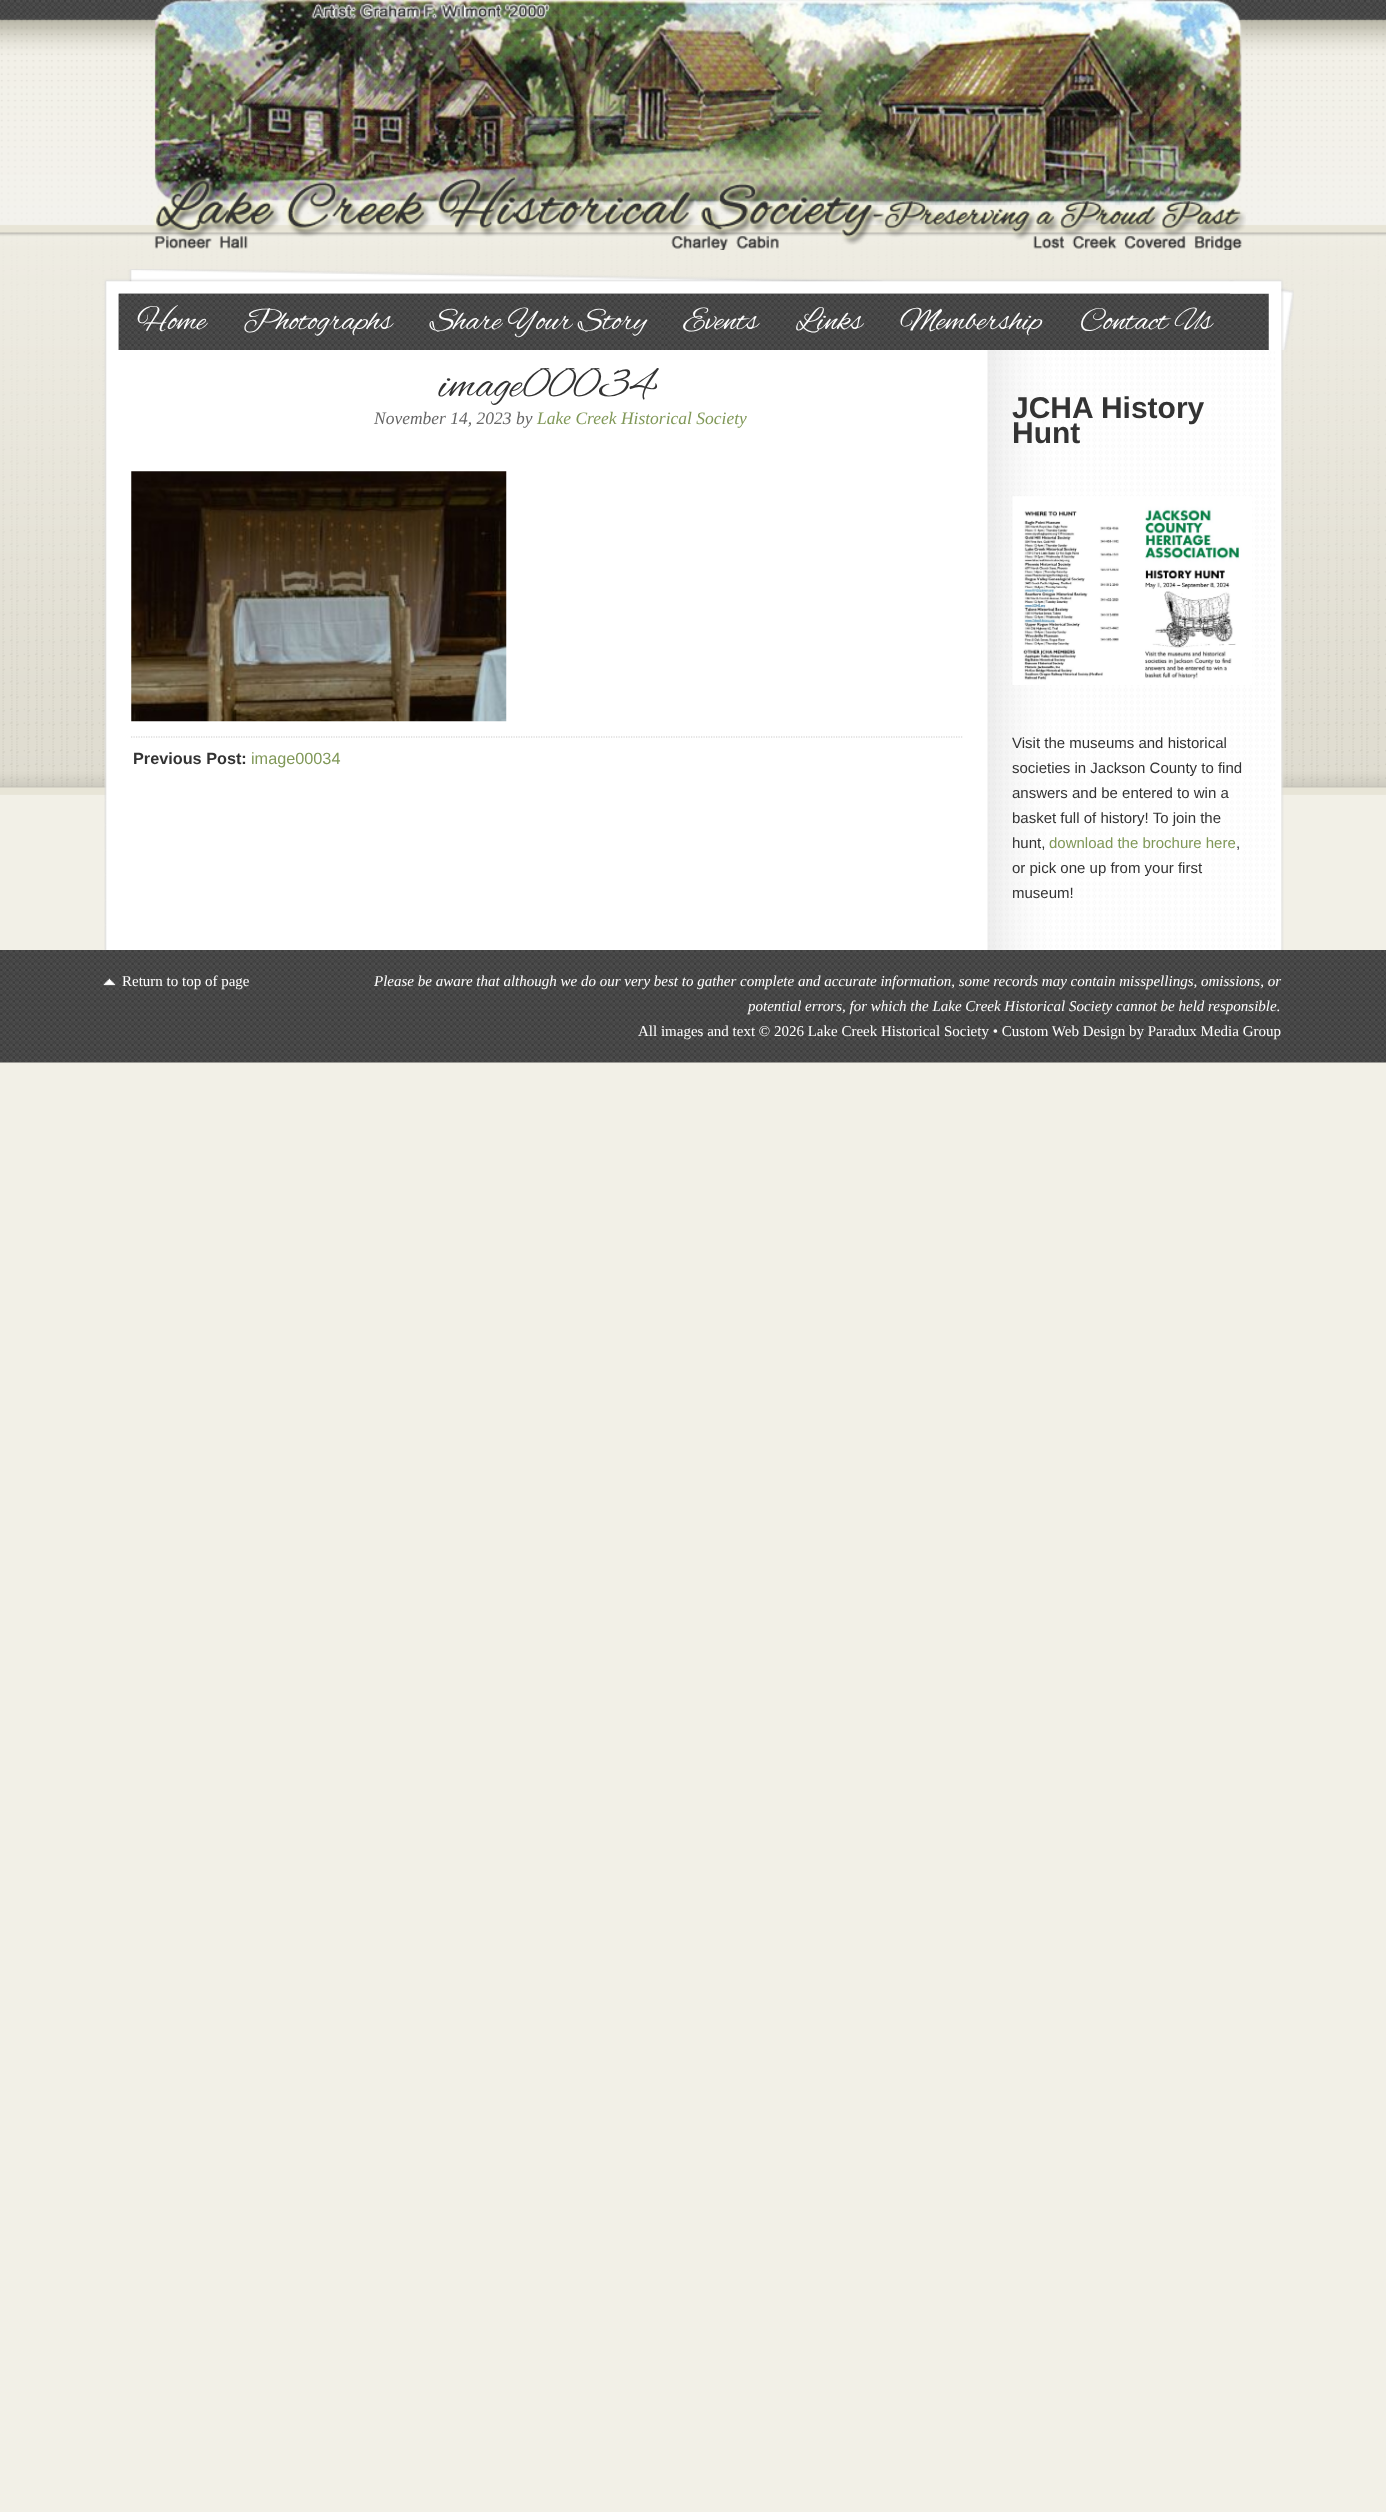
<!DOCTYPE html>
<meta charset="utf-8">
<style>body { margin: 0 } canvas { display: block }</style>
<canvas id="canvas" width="1386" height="2512"></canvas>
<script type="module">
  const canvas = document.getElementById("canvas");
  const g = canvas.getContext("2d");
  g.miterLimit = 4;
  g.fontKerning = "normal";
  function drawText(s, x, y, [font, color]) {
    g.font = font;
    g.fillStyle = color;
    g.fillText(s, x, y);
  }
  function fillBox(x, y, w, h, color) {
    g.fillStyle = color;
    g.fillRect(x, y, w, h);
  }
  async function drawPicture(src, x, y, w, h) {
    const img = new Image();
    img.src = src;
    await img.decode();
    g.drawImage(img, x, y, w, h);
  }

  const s1 = ["32.5px Alex Brush", "#FFFFFF"];
  const s2 = ["43.75px Alex Brush", "#333333"];
  const s3 = ["italic 17.5px Liberation Serif", "#666666"];
  const s4 = ["italic 17.5px Liberation Serif", "#809858"];
  const s5 = ["bold 16.25px Liberation Sans", "#333333"];
  const s6 = ["16.25px Liberation Sans", "#809858"];
  const s7 = ["bold 30px Liberation Sans", "#333333"];
  const s8 = ["15px Liberation Sans", "#333333"];
  const s9 = ["15px Liberation Sans", "#809858"];
  const s10 = ["15px Liberation Serif", "#FFFFFF"];
  const s11 = ["italic 15px Liberation Serif", "#FFFFFF"];

  fillBox(0, 0, 1386, 2512, "#F2F0E7");
  await drawPicture("pic1.png", 0, 0, 1386, 795);
  await drawPicture("pic2.png", 153, 0, 1093, 250);
  await drawPicture("pic3.png", 104, 269, 1190, 81);
  await drawPicture("pic4.png", 118, 293, 1151, 57);
  await drawPicture("pic5.png", 118, 293, 107, 57);
  drawText("Home", 137, 329, s1);
  await drawPicture("pic6.png", 225, 293, 187, 1);
  drawText("Photographs", 243, 329, s1);
  await drawPicture("pic7.png", 411, 293, 254, 57);
  drawText("Share Your Story", 430, 329, s1);
  await drawPicture("pic8.png", 665, 293, 113, 57);
  drawText("Events", 683, 329, s1);
  await drawPicture("pic9.png", 777, 293, 105, 57);
  drawText("Links", 796, 329, s1);
  await drawPicture("pic10.png", 881, 293, 181, 1);
  drawText("Membership", 900, 329, s1);
  await drawPicture("pic11.png", 1061, 293, 169, 57);
  drawText("Contact Us", 1080, 329, s1);
  await drawPicture("pic12.png", 104, 350, 1180, 600);
  drawText("image00034", 439, 396, s2);
  drawText("November 14, 2023 by", 374, 424, s3);
  drawText("Lake Creek Historical Society", 537, 424, s4);
  await drawPicture("pic13.png", 131, 471, 376, 251);
  g.beginPath();
  g.moveTo(131, 737);
  g.lineTo(962.5, 737);
  g.strokeStyle = "#CCCCCC";
  g.lineWidth = 1.2;
  g.setLineDash([1.25, 1.25]);
  g.stroke();
  drawText("Previous Post:", 133, 764, s5);
  drawText("image00034", 251, 764, s6);
  drawText("JCHA History", 1012, 418, s7);
  drawText("Hunt", 1012, 443, s7);
  await drawPicture("pic14.png", 1012, 496, 240, 189);
  drawText("Visit the museums and historical", 1012, 748, s8);
  drawText("societies in Jackson County to find", 1012, 773, s8);
  drawText("answers and be entered to win a", 1012, 798, s8);
  drawText("basket full of history! To join the", 1012, 823, s8);
  drawText("hunt,", 1012, 848, s8);
  drawText("download the brochure here", 1049, 848, s9);
  drawText(",", 1236, 848, s8);
  drawText("or pick one up from your first", 1012, 873, s8);
  drawText("museum!", 1012, 898, s8);
  await drawPicture("pic15.png", 0, 950, 1386, 113);
  await drawPicture("pic16.png", 103, 978, 13, 8);
  drawText("Return to top of page", 122, 986, s10);
  drawText("Please be aware that although we do our very best to gather complete and accurate information, some records may contain misspellings, omissions, or", 374, 986, s11);
  drawText("potential errors, for which the Lake Creek Historical Society cannot be held responsible.", 748, 1011, s11);
  drawText("All images and text © 2026 Lake Creek Historical Society • Custom Web Design by Paradux Media Group", 638, 1036, s10);
</script>
